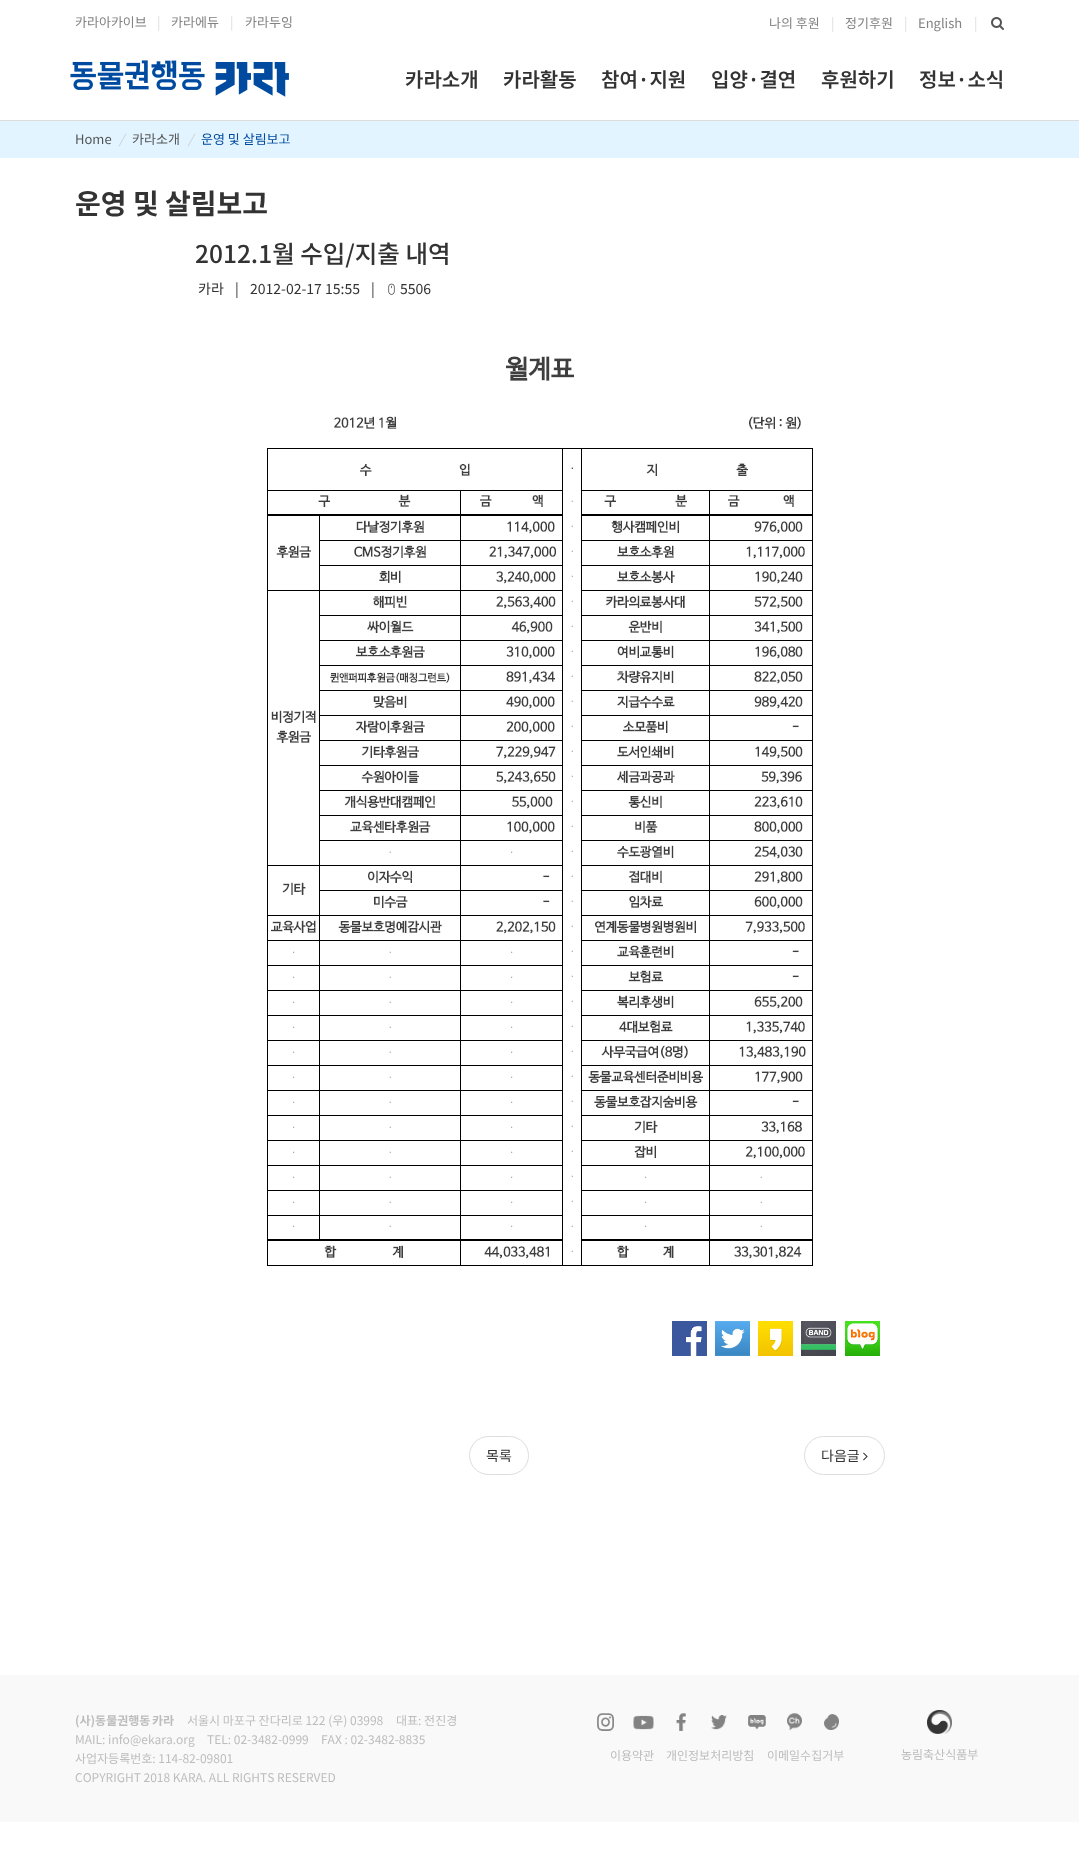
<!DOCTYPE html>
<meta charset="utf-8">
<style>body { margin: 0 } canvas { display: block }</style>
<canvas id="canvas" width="1079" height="1849"></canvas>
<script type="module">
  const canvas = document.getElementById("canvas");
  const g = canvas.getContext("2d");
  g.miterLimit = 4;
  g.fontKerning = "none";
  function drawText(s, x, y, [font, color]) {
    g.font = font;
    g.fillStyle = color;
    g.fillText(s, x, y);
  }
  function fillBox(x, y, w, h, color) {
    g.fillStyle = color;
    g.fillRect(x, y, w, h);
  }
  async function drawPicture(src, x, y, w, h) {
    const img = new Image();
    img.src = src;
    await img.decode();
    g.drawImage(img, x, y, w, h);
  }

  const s1 = ["13px Noto Sans KR", "#828282"];
  const s2 = ["13px Noto Sans KR", "#DDDDDD"];
  const s3 = ["600 20px Noto Sans KR", "#333333"];
  const s4 = ["13px Noto Sans KR", "#555555"];
  const s5 = ["italic 13px Noto Sans KR", "#CCCCCC"];
  const s6 = ["13px Noto Sans KR", "#004BA0"];
  const s7 = ["bold 28px Noto Sans KR", "#333333"];
  const s8 = ["500 24.5px Noto Sans KR", "#333333"];
  const s9 = ["14px Noto Sans KR", "#333333"];
  const s10 = ["bold 12px Noto Sans KR", "#BDBDBD"];
  const s11 = ["12px Noto Sans KR", "#BDBDBD"];

  fillBox(0, 0, 1079, 1849, "#FFFFFF");
  drawText("카라아카이브", 75, 27, s1);
  drawText("|", 157, 27, s2);
  drawText("카라에듀", 171, 27, s1);
  drawText("|", 230, 27, s2);
  drawText("카라두잉", 245, 27, s1);
  drawText("나의 후원", 769, 28, s1);
  drawText("|", 831, 28, s2);
  drawText("정기후원", 845, 28, s1);
  drawText("|", 904, 28, s2);
  drawText("English", 918, 28, s1);
  drawText("|", 974, 28, s2);
  await drawPicture("pic1.png", 991, 17, 13, 13);
  await drawPicture("pic2.png", 70, 60, 219, 37);
  drawText("카라소개", 405, 87, s3);
  drawText("카라활동", 503, 87, s3);
  drawText("참여·지원", 601, 87, s3);
  drawText("입양·결연", 711, 87, s3);
  drawText("후원하기", 821, 87, s3);
  drawText("정보·소식", 919, 87, s3);
  fillBox(0, 121, 1079, 37, "#E2F4FF");
  fillBox(0, 120, 1079, 1, "#DDDDDD");
  drawText("Home", 75, 144, s4);
  drawText("/", 119, 144, s5);
  drawText("카라소개", 132, 144, s4);
  drawText("/", 188, 144, s5);
  drawText("운영 및 살림보고", 201, 144, s6);
  drawText("운영 및 살림보고", 75, 214, s7);
  drawText("2012.1월 수입/지출 내역", 195, 263, s8);
  drawText("카라", 198, 294, s9);
  drawText("|", 235, 294, s9);
  drawText("2012-02-17 15:55", 250, 294, s9);
  drawText("|", 371, 294, s9);
  await drawPicture("pic3.png", 388, 283, 7, 12);
  drawText("5506", 400, 294, s9);
  await drawPicture("pic4.png", 267, 356, 546, 910);
  await drawPicture("pic5.png", 672, 1321, 35, 35);
  await drawPicture("pic6.png", 715, 1321, 35, 35);
  await drawPicture("pic7.png", 758, 1321, 35, 35);
  await drawPicture("pic8.png", 801, 1321, 35, 35);
  await drawPicture("pic9.png", 845, 1321, 35, 35);
  g.beginPath();
  g.roundRect(469.5, 1436.5, 59, 38, 19);
  g.strokeStyle = "#DDDDDD";
  g.stroke();
  drawText("목록", 486, 1461, s9);
  g.beginPath();
  g.roundRect(804.5, 1436.5, 80, 38, 19);
  g.stroke();
  drawText("다음글", 821, 1461, s9);
  await drawPicture("pic10.png", 863, 1452, 5, 9);
  fillBox(0, 1675, 1079, 147, "#F9F9F9");
  g.wordSpacing = "-1px";
  drawText("(사)동물권행동 카라", 75, 1725, s10);
  g.wordSpacing = "0px";
  drawText("서울시 마포구 잔다리로 122 (우) 03998", 187, 1725, s11);
  drawText("대표: 전진경", 396, 1725, s11);
  drawText("MAIL: info@ekara.org", 75, 1744, s11);
  drawText("TEL: 02-3482-0999", 207, 1744, s11);
  drawText("FAX : 02-3482-8835", 321, 1744, s11);
  drawText("사업자등록번호: 114-82-09801", 75, 1763, s11);
  drawText("COPYRIGHT 2018 KARA. ALL RIGHTS RESERVED", 75, 1782, s11);
  await drawPicture("pic11.png", 597, 1713, 17, 18);
  await drawPicture("pic12.png", 633, 1715, 21, 15);
  await drawPicture("pic13.png", 676, 1713, 10, 18);
  await drawPicture("pic14.png", 711, 1715, 16, 15);
  await drawPicture("pic15.png", 748, 1715, 18, 15);
  await drawPicture("pic16.png", 787, 1713, 15, 17);
  await drawPicture("pic17.png", 824, 1714, 15, 16);
  drawText("이용약관", 610, 1760, s11);
  drawText("개인정보처리방침", 666, 1760, s11);
  drawText("이메일수집거부", 767, 1760, s11);
  await drawPicture("pic18.png", 927, 1710, 25, 24);
  drawText("농림축산식품부", 901, 1759, s11);
</script>
